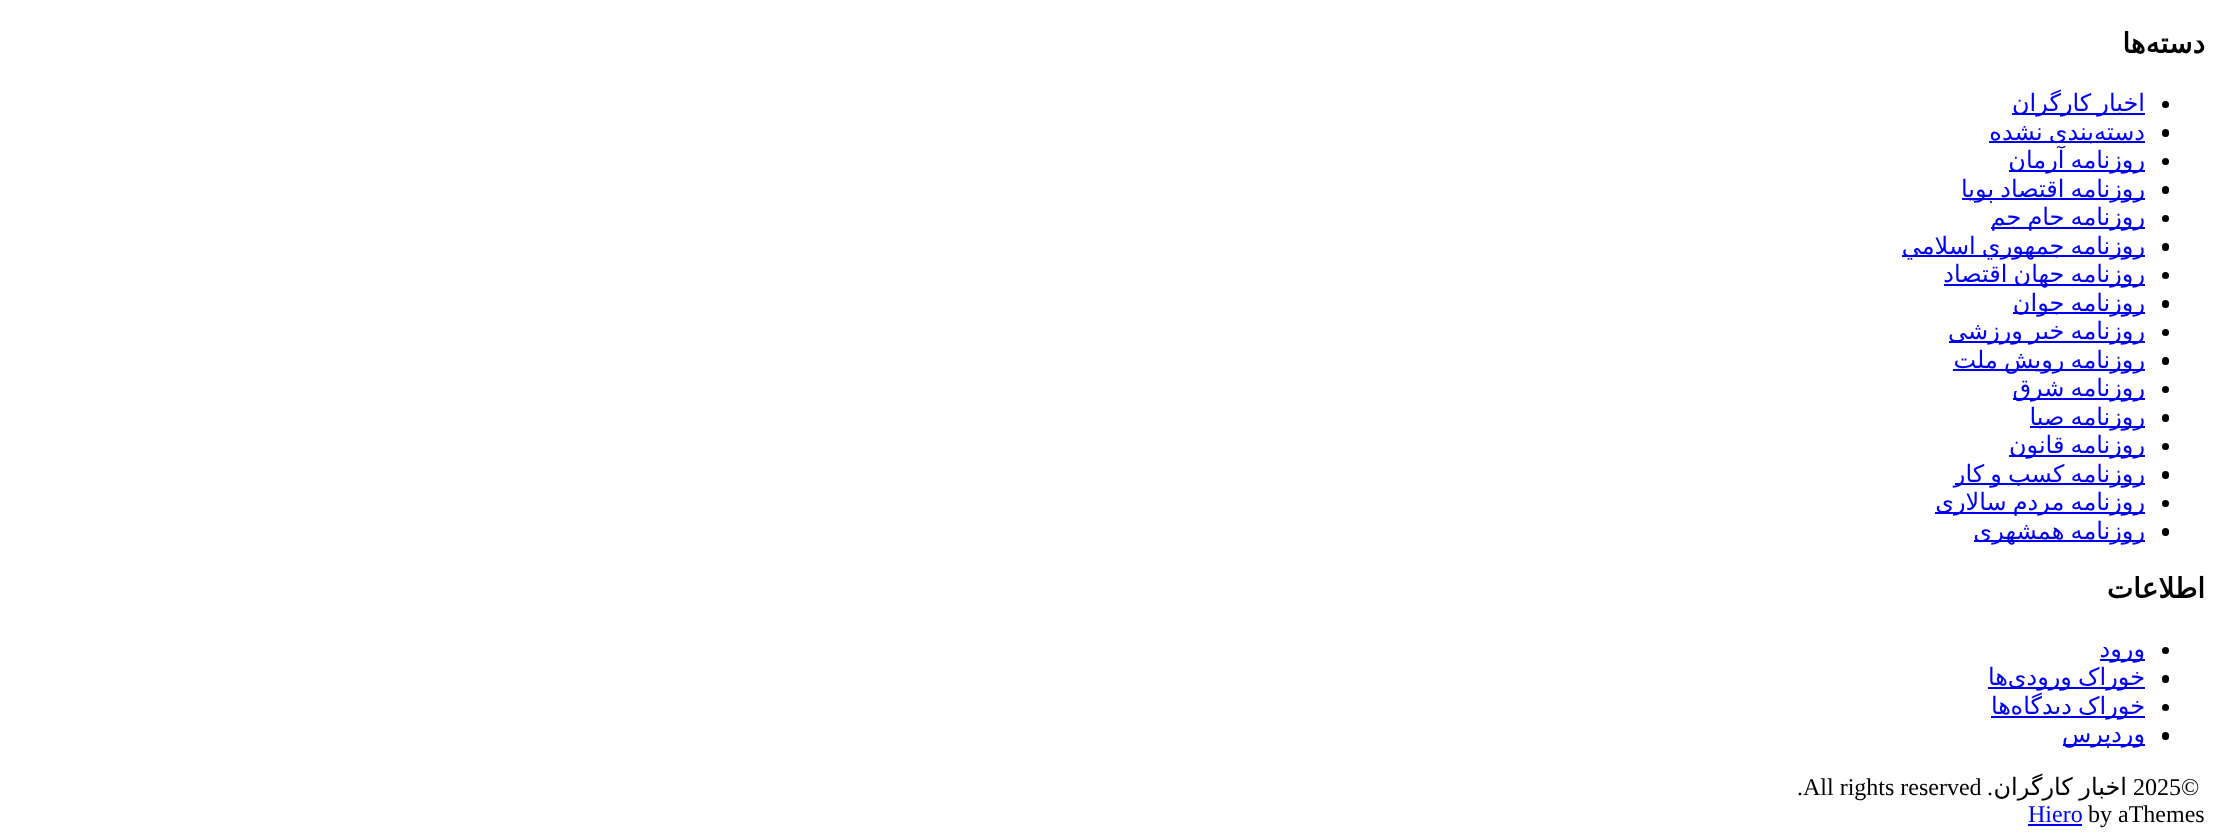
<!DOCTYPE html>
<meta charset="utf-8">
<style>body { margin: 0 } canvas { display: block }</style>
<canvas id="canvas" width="2217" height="840"></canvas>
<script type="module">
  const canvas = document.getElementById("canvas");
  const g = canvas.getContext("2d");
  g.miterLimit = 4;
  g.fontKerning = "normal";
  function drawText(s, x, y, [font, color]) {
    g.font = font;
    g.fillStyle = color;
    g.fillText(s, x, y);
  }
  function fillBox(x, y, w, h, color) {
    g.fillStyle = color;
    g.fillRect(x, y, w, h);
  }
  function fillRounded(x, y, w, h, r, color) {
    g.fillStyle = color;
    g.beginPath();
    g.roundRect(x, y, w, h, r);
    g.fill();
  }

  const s1 = ["bold 28px DejaVu Sans", "#000000"];
  const s2 = ["24px DejaVu Sans", "#0000EE"];
  const s3 = ["24px Liberation Serif", "#000000"];
  const s4 = ["24px DejaVu Sans", "#000000"];
  const s5 = ["24px Liberation Serif", "#0000EE"];

  fillBox(0, 0, 2217, 840, "#FFFFFF");
  g.direction = "rtl";
  drawText("دسته‌ها", 2205, 53, s1);
  g.beginPath();
  g.arc(2165.5, 104.5, 3.5, 0, Math.PI * 2);
  g.fill();
  fillBox(2012, 113, 133, 2, "#0000EE");
  g.wordSpacing = "-1.5px";
  drawText("اخبار کارگران", 2145, 111, s2);
  fillRounded(2162, 129, 7, 8, 3.5, "#000000");
  g.wordSpacing = "0px";
  drawText("دسته", 2145, 140, s2);
  fillBox(1989, 141, 156, 2, "#0000EE");
  g.wordSpacing = "-1.5px";
  drawText("بندی نشده", 2094, 140, s2);
  g.fillStyle = "#000000";
  g.beginPath();
  g.arc(2165.5, 161.5, 3.5, 0, Math.PI * 2);
  g.fill();
  fillBox(2009, 170, 136, 2, "#0000EE");
  drawText("روزنامه آرمان", 2145, 168, s2);
  fillRounded(2162, 186, 7, 8, 3.5, "#000000");
  fillBox(1962, 198, 183, 2, "#0000EE");
  drawText("روزنامه اقتصاد پویا", 2145, 197, s2);
  g.fillStyle = "#000000";
  g.beginPath();
  g.arc(2165.5, 218.5, 3.5, 0, Math.PI * 2);
  g.fill();
  fillBox(1991, 227, 154, 2, "#0000EE");
  drawText("روزنامه جام جم", 2145, 225, s2);
  fillRounded(2162, 243, 7, 8, 3.5, "#000000");
  fillBox(1902, 255, 243, 2, "#0000EE");
  drawText("روزنامه جمهوري اسلامي", 2145, 254, s2);
  g.fillStyle = "#000000";
  g.beginPath();
  g.arc(2165.5, 275.5, 3.5, 0, Math.PI * 2);
  g.fill();
  fillBox(1944, 284, 201, 2, "#0000EE");
  drawText("روزنامه جهان اقتصاد", 2145, 282, s2);
  fillRounded(2162, 300, 7, 8, 3.5, "#000000");
  fillBox(2013, 312, 132, 2, "#0000EE");
  drawText("روزنامه جوان", 2145, 311, s2);
  g.fillStyle = "#000000";
  g.beginPath();
  g.arc(2165.5, 332.5, 3.5, 0, Math.PI * 2);
  g.fill();
  fillBox(1949, 341, 196, 2, "#0000EE");
  drawText("روزنامه خبر ورزشى", 2145, 339, s2);
  fillRounded(2162, 357, 7, 8, 3.5, "#000000");
  fillBox(1953, 369, 192, 2, "#0000EE");
  drawText("روزنامه رویش ملت", 2145, 368, s2);
  g.fillStyle = "#000000";
  g.beginPath();
  g.arc(2165.5, 389.5, 3.5, 0, Math.PI * 2);
  g.fill();
  fillBox(2013, 398, 132, 2, "#0000EE");
  drawText("روزنامه شرق", 2145, 396, s2);
  fillRounded(2162, 414, 7, 8, 3.5, "#000000");
  fillBox(2030, 426, 115, 2, "#0000EE");
  drawText("روزنامه صبا", 2145, 425, s2);
  g.fillStyle = "#000000";
  g.beginPath();
  g.arc(2165.5, 446.5, 3.5, 0, Math.PI * 2);
  g.fill();
  fillBox(2009, 455, 136, 2, "#0000EE");
  drawText("روزنامه قانون", 2145, 453, s2);
  fillRounded(2162, 471, 7, 8, 3.5, "#000000");
  fillBox(1955, 483, 190, 2, "#0000EE");
  drawText("روزنامه كسب و كار", 2145, 482, s2);
  g.fillStyle = "#000000";
  g.beginPath();
  g.arc(2165.5, 503.5, 3.5, 0, Math.PI * 2);
  g.fill();
  fillBox(1935, 512, 210, 2, "#0000EE");
  drawText("روزنامه مردم سالاری", 2145, 510, s2);
  fillRounded(2162, 528, 7, 8, 3.5, "#000000");
  fillBox(1974, 540, 171, 2, "#0000EE");
  drawText("روزنامه همشهری", 2145, 539, s2);
  g.wordSpacing = "0px";
  drawText("اطلاعات", 2205, 598, s1);
  g.beginPath();
  g.arc(2165.5, 650.5, 3.5, 0, Math.PI * 2);
  g.fill();
  fillBox(2100, 659, 45, 2, "#0000EE");
  drawText("ورود", 2145, 657, s2);
  fillRounded(2162, 675, 7, 8, 3.5, "#000000");
  fillBox(1988, 687, 157, 2, "#0000EE");
  g.wordSpacing = "-1.5px";
  drawText("خوراک ورودی", 2145, 685, s2);
  g.wordSpacing = "0px";
  drawText("ها", 2008, 685, s2);
  g.fillStyle = "#000000";
  g.beginPath();
  g.arc(2165.5, 707.5, 3.5, 0, Math.PI * 2);
  g.fill();
  fillBox(1991, 716, 154, 2, "#0000EE");
  g.wordSpacing = "-1.5px";
  drawText("خوراک دیدگاه", 2145, 714, s2);
  g.wordSpacing = "0px";
  drawText("ها", 2011, 714, s2);
  fillRounded(2162, 732, 7, 8, 3.5, "#000000");
  fillBox(2063, 744, 82, 2, "#0000EE");
  drawText("وردپرس", 2145, 742, s2);
  g.direction = "ltr";
  drawText("2025©", 2133, 795, s3);
  g.wordSpacing = "-1px";
  g.direction = "rtl";
  drawText("اخبار کارگران", 2127, 795, s4);
  g.wordSpacing = "0px";
  drawText(".", 1993, 795, s3);
  g.direction = "ltr";
  drawText(".All rights reserved", 1797, 795, s3);
  drawText("by aThemes", 2088, 822, s3);
  drawText("Hiero", 2028, 822, s5);
  fillBox(2028, 824, 54, 2, "#0000EE");
</script>
